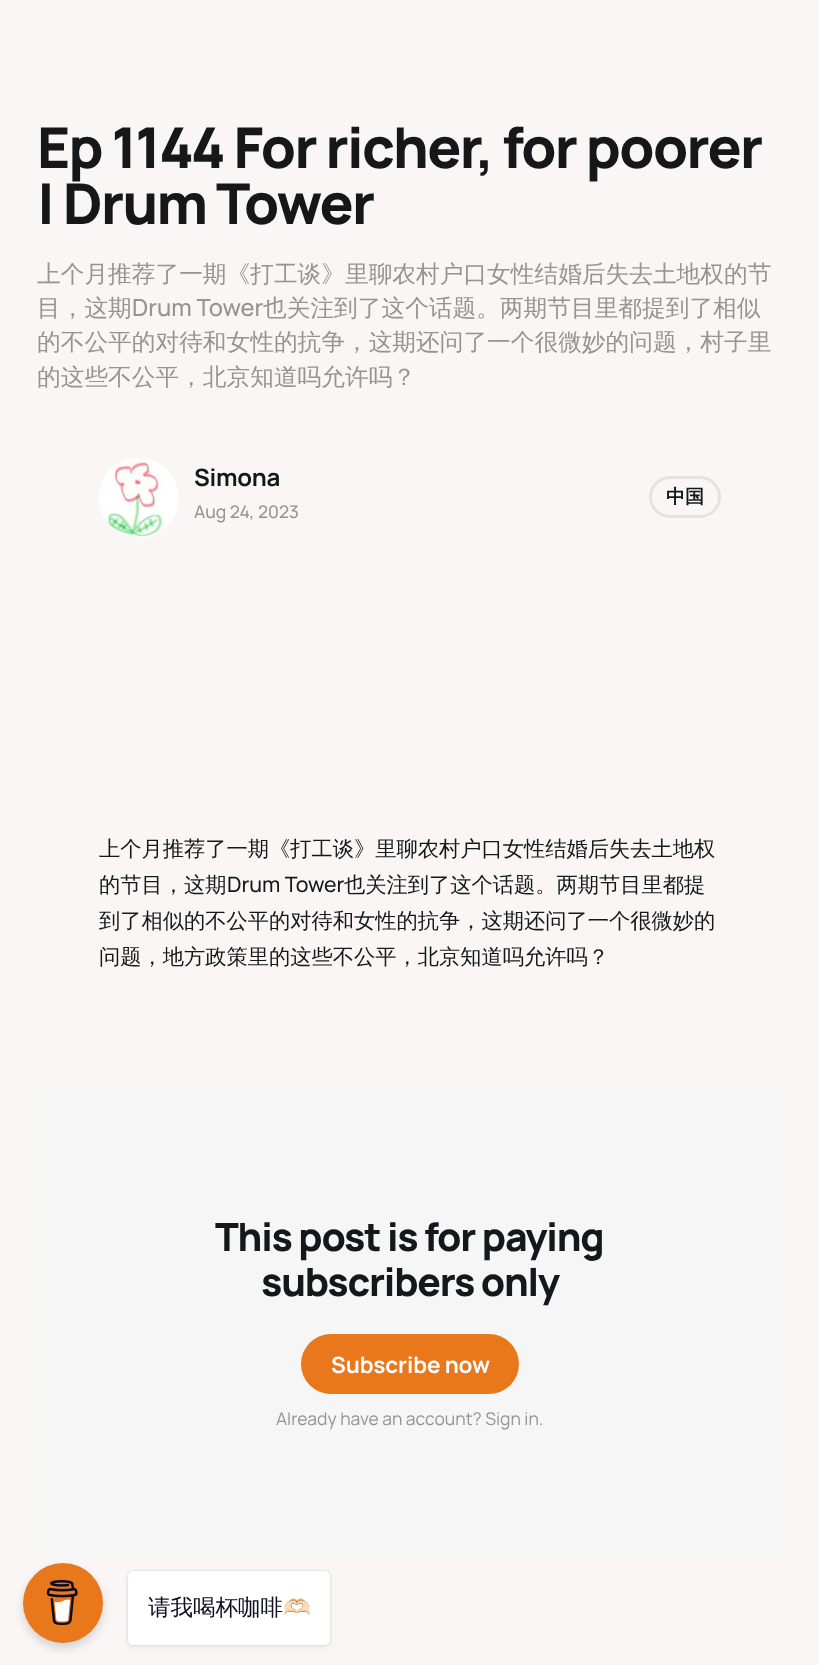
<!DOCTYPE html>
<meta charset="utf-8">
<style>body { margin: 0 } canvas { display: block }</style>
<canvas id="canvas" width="819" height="1665"></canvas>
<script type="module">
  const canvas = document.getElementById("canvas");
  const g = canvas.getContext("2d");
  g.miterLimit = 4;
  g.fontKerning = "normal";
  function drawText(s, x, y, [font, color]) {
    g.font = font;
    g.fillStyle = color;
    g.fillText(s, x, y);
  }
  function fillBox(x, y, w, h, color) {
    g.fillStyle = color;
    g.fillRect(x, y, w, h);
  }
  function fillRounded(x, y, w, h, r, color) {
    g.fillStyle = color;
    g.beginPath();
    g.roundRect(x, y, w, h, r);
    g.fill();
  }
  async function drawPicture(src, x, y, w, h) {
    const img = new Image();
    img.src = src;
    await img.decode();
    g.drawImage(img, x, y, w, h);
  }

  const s1 = ["800 56.3px Manrope", "#15171A"];
  const s2 = ["500 23.7px WenQuanYi Zen Hei", "#959493"];
  const s3 = ["500 23.7px 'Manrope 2'", "#959493"];
  const s4 = ["bold 24px Manrope", "#15171A"];
  const s5 = ["500 17.5px Manrope", "#959493"];
  const s6 = ["bold 19px WenQuanYi Zen Hei", "#15171A"];
  const s7 = ["500 21.25px WenQuanYi Zen Hei", "#15171A"];
  const s8 = ["500 21.25px Manrope", "#15171A"];
  const s9 = ["800 39px Manrope", "#15171A"];
  const s10 = ["bold 22.5px Manrope", "#FFFFFF"];
  const s11 = ["17.5px Manrope", "#959493"];
  const s12 = ["500 22.5px WenQuanYi Zen Hei", "#0D0C22"];
  const s13 = ["22.5px Noto Color Emoji", "#0D0C22"];

  fillBox(0, 0, 819, 1665, "#F9F6F5");
  g.letterSpacing = "-1.7px";
  drawText("Ep 1144 For richer, for poorer", 37, 168, s1);
  drawText("| Drum Tower", 37, 224, s1);
  g.letterSpacing = "0px";
  drawText("上个月推荐了一期《打工谈》里聊农村户口女性结婚后失去土地权的节", 37, 282, s2);
  drawText("目，这期", 37, 316, s2);
  drawText("Drum Tower", 132, 316, s3);
  drawText("也关注到了这个话题。两期节目里都提到了相似", 263, 316, s2);
  drawText("的不公平的对待和女性的抗争，这期还问了一个很微妙的问题，村子里", 37, 350, s2);
  drawText("的这些不公平，北京知道吗允许吗？", 37, 385, s2);
  await drawPicture("pic1.png", 99, 458, 80, 80);
  g.letterSpacing = "-0.25px";
  drawText("Simona", 194, 486, s4);
  g.letterSpacing = "0px";
  drawText("Aug 24, 2023", 194, 518, s5);
  g.beginPath();
  g.roundRect(650.5, 477.5, 69, 39, 19.5);
  g.strokeStyle = "#E5E2E1";
  g.lineWidth = 3;
  g.stroke();
  drawText("中国", 666, 503, s6);
  drawText("上个月推荐了一期《打工谈》里聊农村户口女性结婚后失去土地权", 99, 856, s7);
  drawText("的节目，这期", 99, 892, s7);
  drawText("Drum Tower", 227, 892, s8);
  drawText("也关注到了这个话题。两期节目里都提", 344, 892, s7);
  drawText("到了相似的不公平的对待和女性的抗争，这期还问了一个很微妙的", 99, 928, s7);
  drawText("问题，地方政策里的这些不公平，北京知道吗允许吗？", 99, 964, s7);
  fillBox(38, 1091, 745, 467, "#F6F6F6");
  g.letterSpacing = "-1.2px";
  drawText("This post is for paying", 215, 1251, s9);
  drawText("subscribers only", 261, 1296, s9);
  fillRounded(301, 1334, 218, 60, 30, "#E9781C");
  g.letterSpacing = "-0.1px";
  drawText("Subscribe now", 331, 1373, s10);
  g.letterSpacing = "0px";
  drawText("Already have an account? Sign in.", 276, 1425, s11);
  g.fillStyle = "rgba(0, 0, 0, 0.15)";
  g.filter = "blur(5px)";
  g.beginPath();
  g.roundRect(23, 1568, 80, 80, 40);
  g.fill();
  g.filter = "none";
  g.fillStyle = "#E9781C";
  g.beginPath();
  g.arc(63, 1603, 40, 0, Math.PI * 2);
  g.fill();
  await drawPicture("pic2.png", 46, 1580, 32, 45);
  g.fillStyle = "rgba(0, 0, 0, 0.15)";
  g.filter = "blur(1px)";
  g.beginPath();
  g.roundRect(128, 1571, 202, 74, 5);
  g.fill();
  g.filter = "none";
  g.fillStyle = "rgba(0, 0, 0, 0.05)";
  g.filter = "blur(3px)";
  g.beginPath();
  g.roundRect(128, 1574, 202, 74, 5);
  g.fill();
  g.filter = "none";
  fillRounded(128, 1571, 202, 74, 5, "#FFFFFF");
  drawText("请我喝杯咖啡", 148, 1615, s12);
  drawText("🫶🏻", 283, 1615, s13);
</script>
